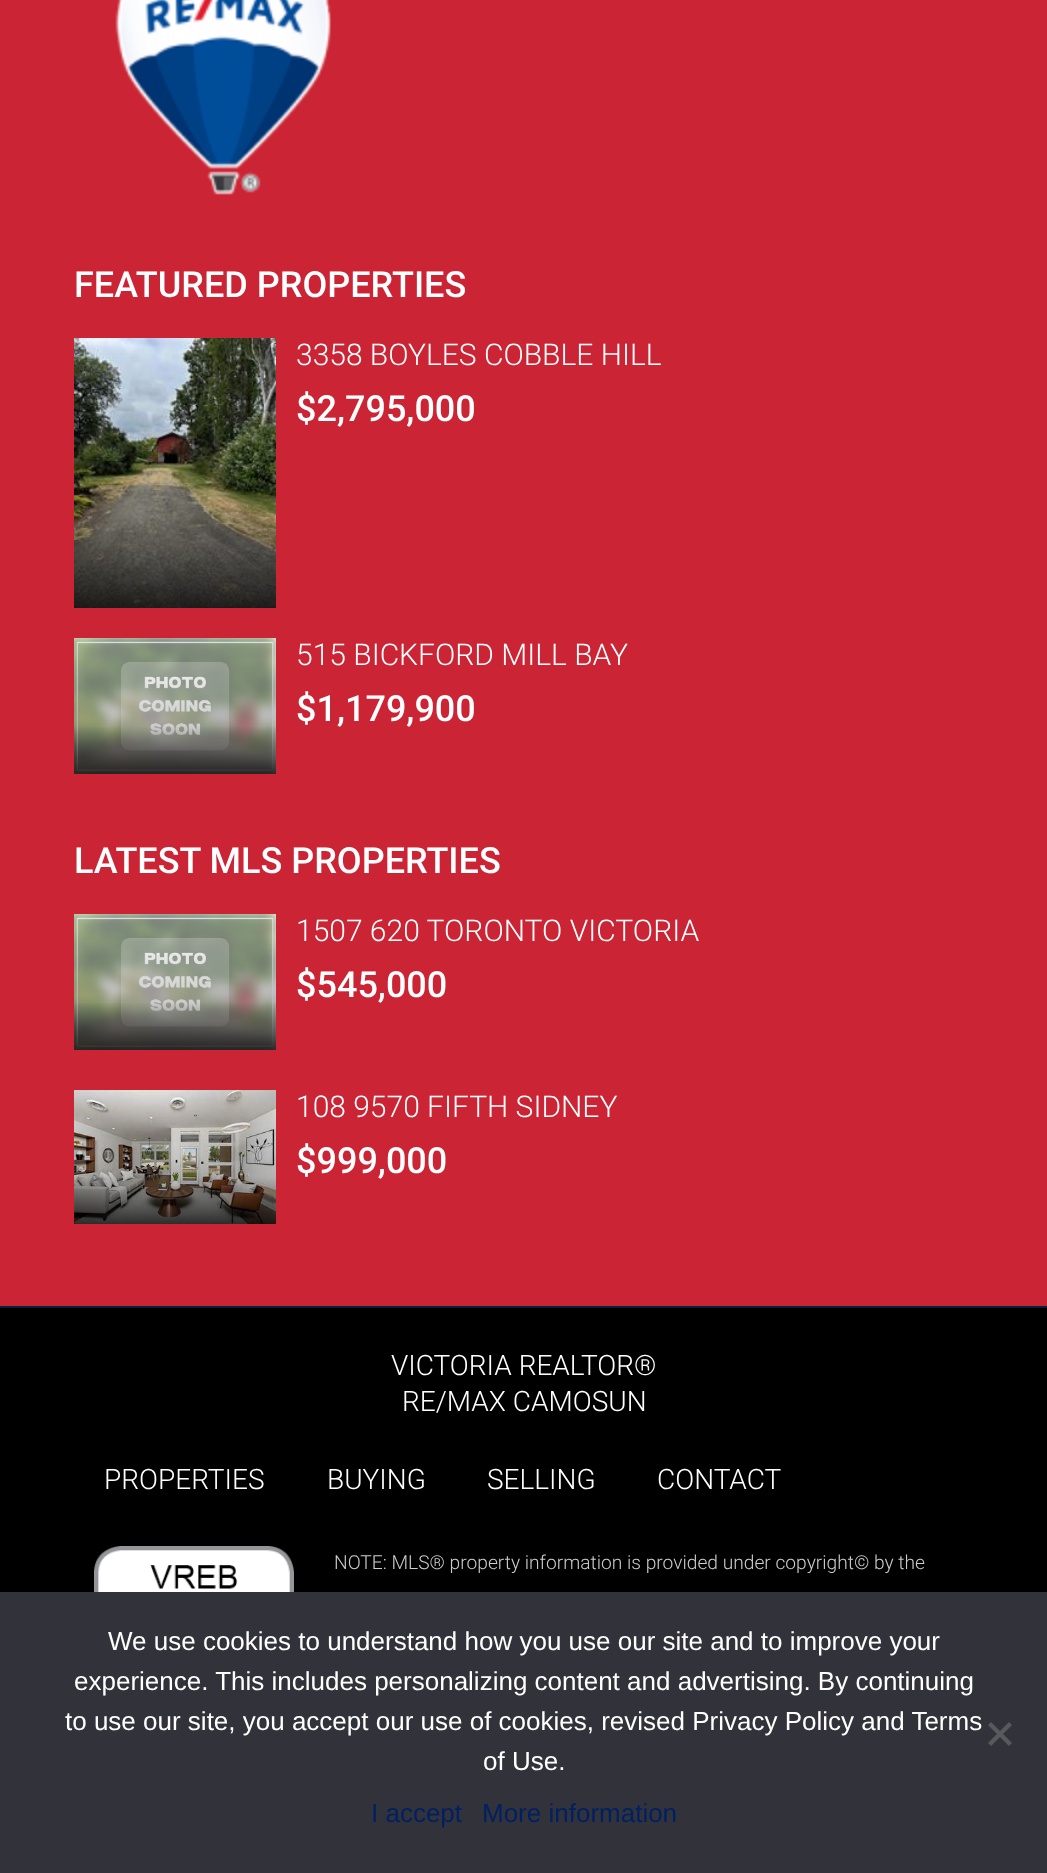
<!DOCTYPE html>
<meta charset="utf-8">
<style>body { margin: 0 } canvas { display: block }</style>
<canvas id="canvas" width="1047" height="1873"></canvas>
<script type="module">
  const canvas = document.getElementById("canvas");
  const g = canvas.getContext("2d");
  g.miterLimit = 4;
  g.fontKerning = "normal";
  function drawText(s, x, y, [font, color]) {
    g.font = font;
    g.fillStyle = color;
    g.fillText(s, x, y);
  }
  function fillBox(x, y, w, h, color) {
    g.fillStyle = color;
    g.fillRect(x, y, w, h);
  }
  async function drawPicture(src, x, y, w, h) {
    const img = new Image();
    img.src = src;
    await img.decode();
    g.drawImage(img, x, y, w, h);
  }

  const s1 = ["500 36px Roboto", "#FFFFFF"];
  const s2 = ["300 30px Roboto", "#FFFFFF"];
  const s3 = ["300 28px Roboto", "#FFFFFF"];
  const s4 = ["300 19.2px Roboto", "#CCCCCC"];
  const s5 = ["26px Liberation Sans", "#FFFFFF"];
  const s6 = ["26px Liberation Sans", "#002064"];

  fillBox(0, 0, 1047, 1873, "#CB2535");
  await drawPicture("pic1.png", 115, 0, 216, 195);
  drawText("FEATURED PROPERTIES", 74, 297, s1);
  await drawPicture("pic2.png", 74, 338, 202, 270);
  drawText("3358 BOYLES COBBLE HILL", 296, 365, s2);
  drawText("$2,795,000", 296, 421, s1);
  await drawPicture("pic3.png", 74, 638, 202, 136);
  drawText("515 BICKFORD MILL BAY", 296, 665, s2);
  drawText("$1,179,900", 296, 721, s1);
  drawText("LATEST MLS PROPERTIES", 74, 873, s1);
  await drawPicture("pic3.png", 74, 914, 202, 136);
  drawText("1507 620 TORONTO VICTORIA", 296, 941, s2);
  drawText("$545,000", 296, 997, s1);
  await drawPicture("pic4.png", 74, 1090, 202, 134);
  drawText("108 9570 FIFTH SIDNEY", 296, 1117, s2);
  drawText("$999,000", 296, 1173, s1);
  fillBox(0, 1308, 1047, 284, "#000000");
  fillBox(0, 1306, 1047, 2, "#00243F");
  drawText("VICTORIA REALTOR®", 391, 1375, s3);
  drawText("RE/MAX CAMOSUN", 402, 1411, s3);
  drawText("PROPERTIES", 104, 1489, s3);
  drawText("BUYING", 327, 1489, s3);
  drawText("SELLING", 487, 1489, s3);
  drawText("CONTACT", 657, 1489, s3);
  await drawPicture("pic5.png", 94, 1546, 200, 46);
  drawText("NOTE: MLS® property information is provided under copyright© by the", 334, 1569, s4);
  fillBox(0, 1592, 1047, 281, "#32323A");
  drawText("We use cookies to understand how you use our site and to improve your", 108, 1650, s5);
  drawText("experience. This includes personalizing content and advertising. By continuing", 74, 1690, s5);
  drawText("to use our site, you accept our use of cookies, revised Privacy Policy and Terms", 65, 1730, s5);
  drawText("of Use.", 483, 1770, s5);
  g.fillStyle = "#59595D";
  g.beginPath();
  g.moveTo(1009, 1722);
  g.lineTo(1012, 1725);
  g.lineTo(991, 1746);
  g.lineTo(988, 1743);
  g.closePath();
  g.fill();
  g.beginPath();
  g.moveTo(988, 1725);
  g.lineTo(991, 1722);
  g.lineTo(1012, 1743);
  g.lineTo(1009, 1746);
  g.closePath();
  g.fill();
  drawText("I accept", 371, 1822, s6);
  drawText("More information", 482, 1822, s6);
</script>
